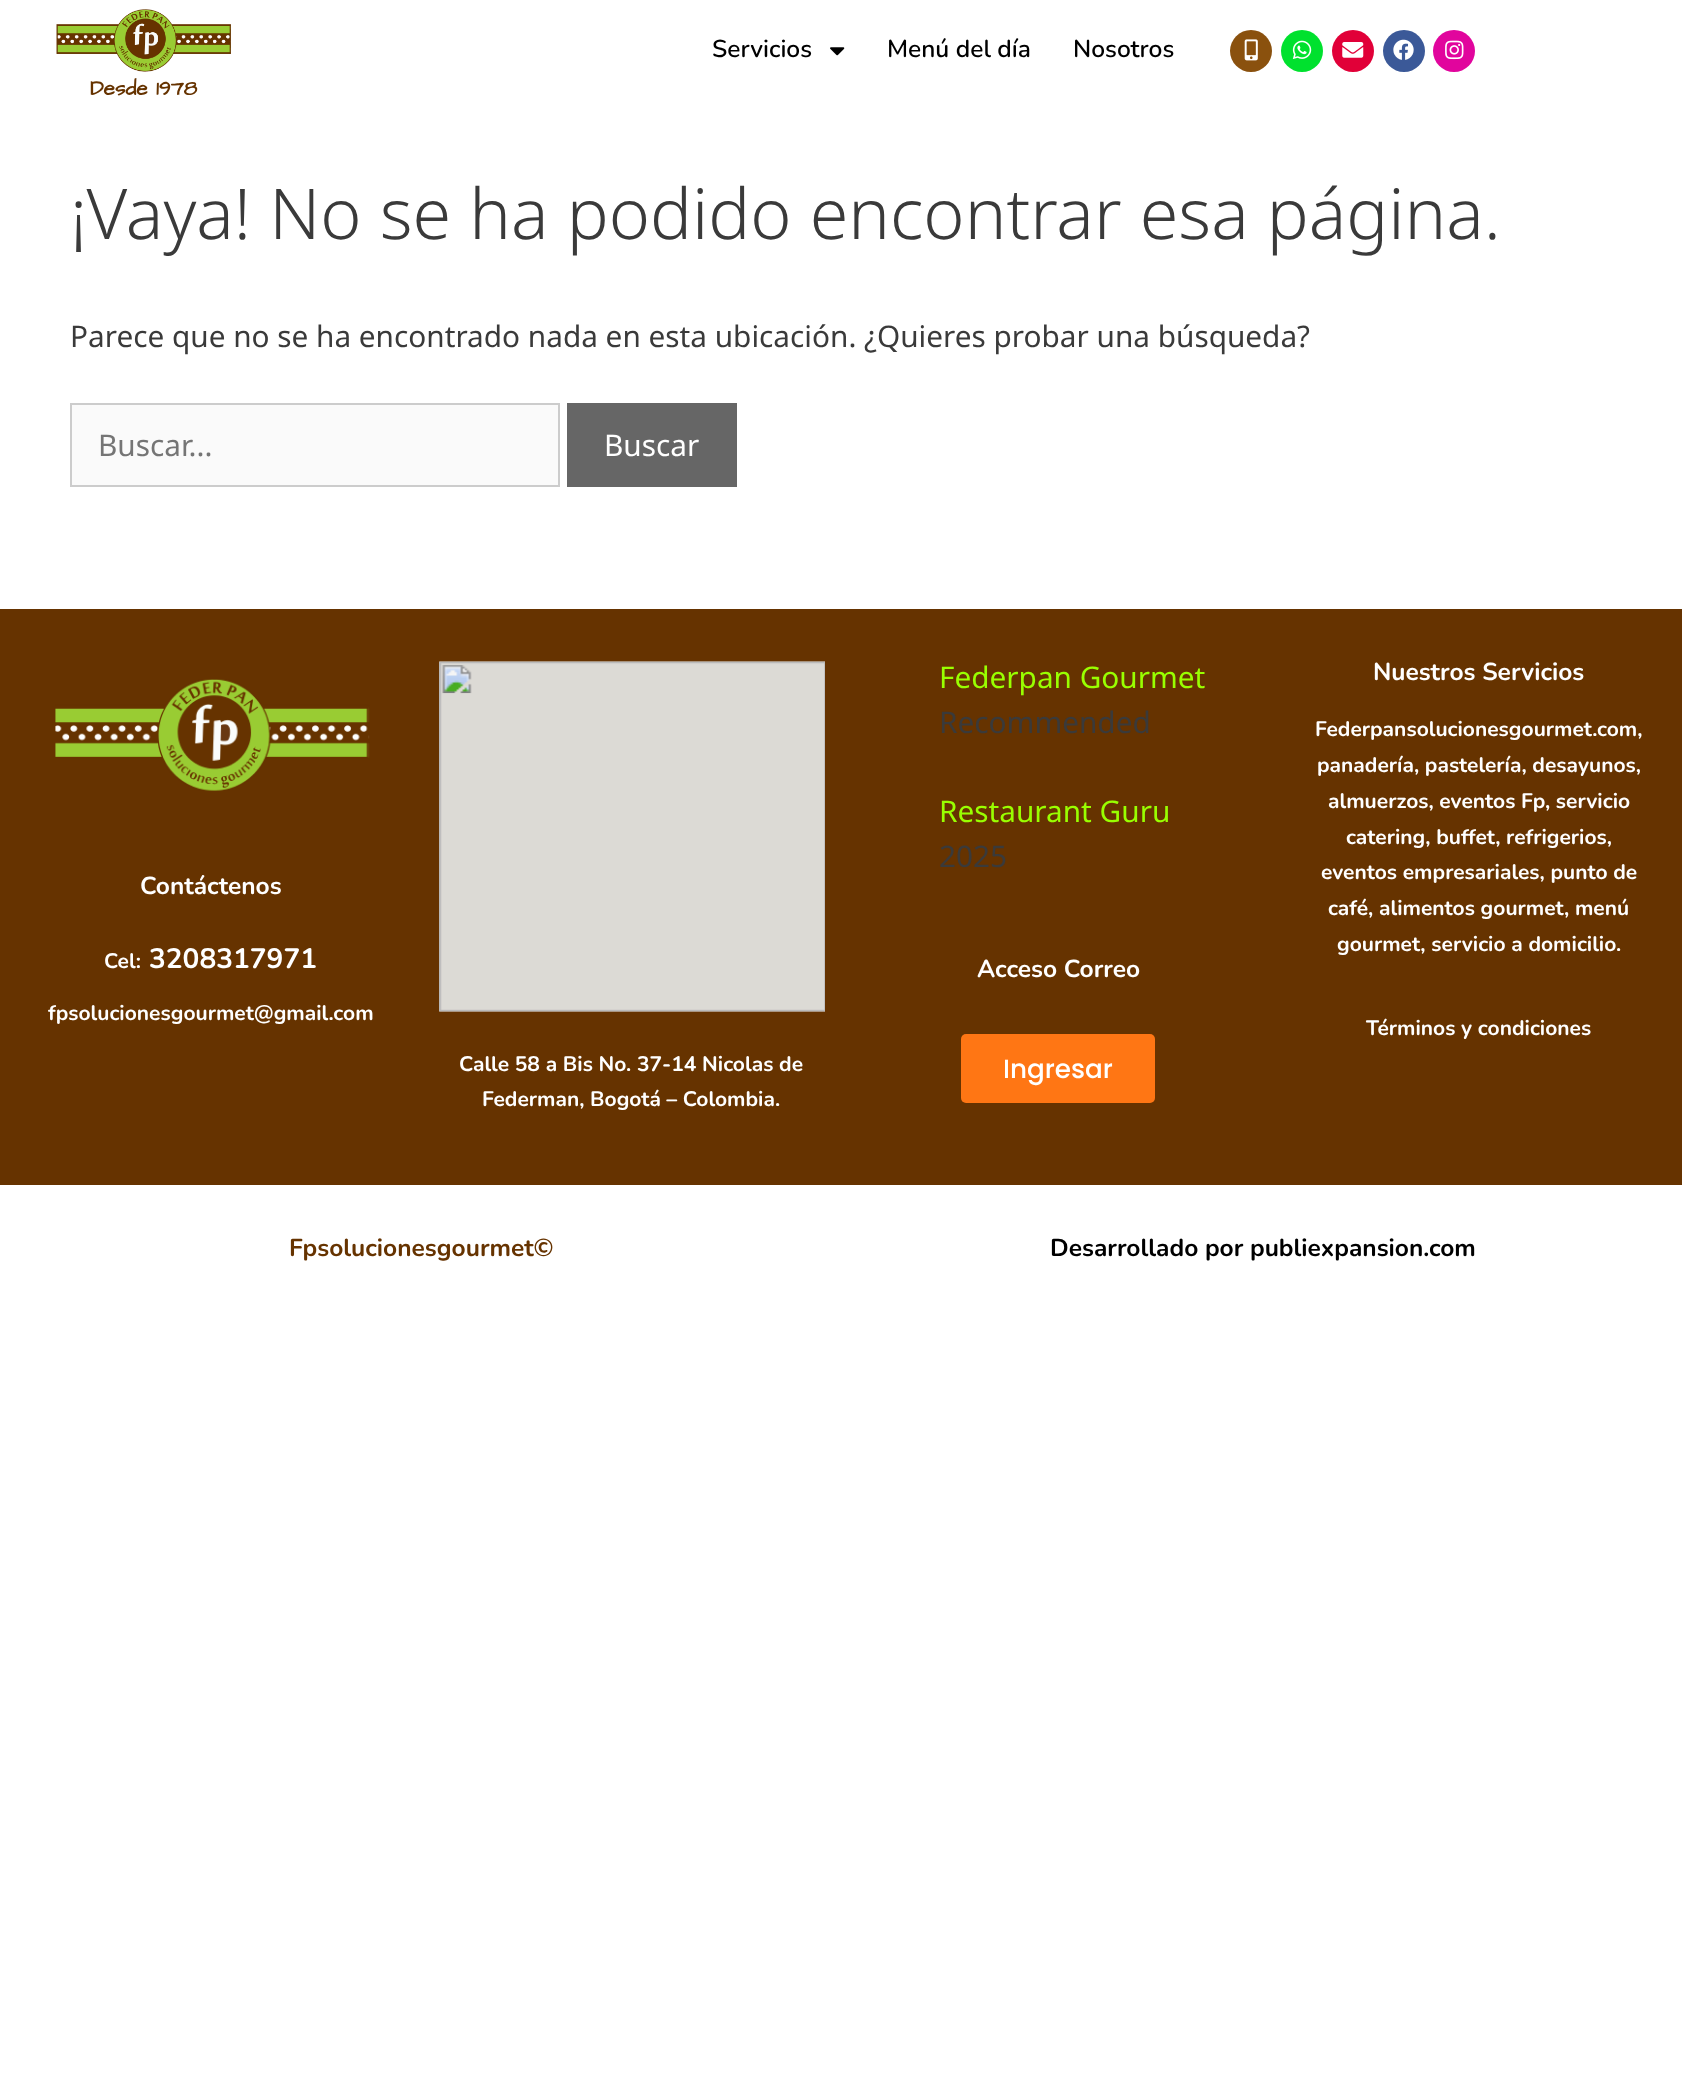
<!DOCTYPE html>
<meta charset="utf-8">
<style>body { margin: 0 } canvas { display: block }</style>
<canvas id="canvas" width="1682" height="2088"></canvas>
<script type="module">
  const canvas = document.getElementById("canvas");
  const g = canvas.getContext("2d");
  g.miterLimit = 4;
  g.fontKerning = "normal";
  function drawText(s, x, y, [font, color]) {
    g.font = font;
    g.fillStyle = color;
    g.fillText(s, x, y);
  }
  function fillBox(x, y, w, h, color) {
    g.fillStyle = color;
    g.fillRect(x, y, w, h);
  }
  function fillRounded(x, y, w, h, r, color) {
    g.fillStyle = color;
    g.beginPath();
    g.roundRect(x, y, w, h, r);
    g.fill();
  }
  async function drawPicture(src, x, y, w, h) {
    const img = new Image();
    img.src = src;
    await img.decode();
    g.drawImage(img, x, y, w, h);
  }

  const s1 = ["600 24.5px Nunito", "#000000"];
  const s2 = ["bold 21px Architects Daughter", "#663300"];
  const s3 = ["300 70px Noto Sans", "#3A3A3A"];
  const s4 = ["29.75px Noto Sans", "#3A3A3A"];
  const s5 = ["29.75px Noto Sans", "#757575"];
  const s6 = ["29.75px Noto Sans", "#FFFFFF"];
  const s7 = ["bold 24.5px Nunito", "#FFFFFF"];
  const s8 = ["bold 21px Nunito", "#FFFFFF"];
  const s9 = ["bold 28px Nunito", "#FFFFFF"];
  const s10 = ["29.75px Noto Sans", "#99FF00"];
  const s11 = ["500 26.25px Poppins", "#FFFFFF"];
  const s12 = ["bold 24.5px Nunito", "#663300"];
  const s13 = ["bold 24.5px Nunito", "#000000"];

  fillBox(0, 0, 1682, 2088, "#FFFFFF");
  drawText("Servicios", 712, 57, s1);
  await drawPicture("pic1.png", 830, 47, 15, 9);
  drawText("Menú del día", 887, 57, s1);
  drawText("Nosotros", 1073, 57, s1);
  g.fillStyle = "#8A510E";
  g.beginPath();
  g.arc(1251, 51, 21, 0, Math.PI * 2);
  g.fill();
  await drawPicture("pic2.png", 1244, 39, 14, 22);
  g.fillStyle = "#00E12E";
  g.beginPath();
  g.arc(1302, 51, 21, 0, Math.PI * 2);
  g.fill();
  await drawPicture("pic3.png", 1292, 40, 20, 19);
  g.fillStyle = "#E10038";
  g.beginPath();
  g.arc(1353, 51, 21, 0, Math.PI * 2);
  g.fill();
  await drawPicture("pic4.png", 1342, 42, 22, 16);
  g.fillStyle = "#3B5998";
  g.beginPath();
  g.arc(1404, 51, 21, 0, Math.PI * 2);
  g.fill();
  await drawPicture("pic5.png", 1393, 39, 21, 21);
  g.fillStyle = "#E1059D";
  g.beginPath();
  g.arc(1454, 51, 21, 0, Math.PI * 2);
  g.fill();
  await drawPicture("pic6.png", 1445, 40, 19, 20);
  await drawPicture("pic7.png", 56, 9, 175, 63);
  drawText("Desde 1978", 90, 95, s2);
  drawText("¡Vaya! No se ha podido encontrar esa página.", 70, 239, s3);
  drawText("Parece que no se ha encontrado nada en esta ubicación. ¿Quieres probar una búsqueda?", 70, 347, s4);
  g.fillStyle = "#FAFAFA";
  g.beginPath();
  g.rect(71, 404, 488, 82);
  g.fill();
  g.strokeStyle = "#CCCCCC";
  g.lineWidth = 2;
  g.stroke();
  drawText("Buscar...", 98, 456, s5);
  fillBox(567, 403, 170, 84, "#666666");
  drawText("Buscar", 604, 456, s6);
  fillBox(0, 609, 1682, 576, "#663300");
  await drawPicture("pic8.png", 55, 679, 315, 112);
  drawText("Contáctenos", 140, 894, s7);
  drawText("Cel:", 104, 968, s8);
  drawText("3208317971", 149, 968, s9);
  drawText("fpsolucionesgourmet@gmail.com", 48, 1020, s8);
  drawText("Federpan Gourmet", 939, 688, s10);
  drawText("Recommended", 939, 733, s4);
  drawText("Restaurant Guru", 939, 822, s10);
  drawText("2025", 939, 867, s4);
  drawText("Acceso Correo", 977, 977, s7);
  fillRounded(961, 1034, 194, 69, 5, "#FF7614");
  drawText("Ingresar", 1003, 1078, s11);
  drawText("Nuestros Servicios", 1373, 680, s7);
  drawText("Federpansolucionesgourmet.com,", 1315, 736, s8);
  drawText("panadería, pastelería, desayunos,", 1317, 772, s8);
  drawText("almuerzos, eventos Fp, servicio", 1328, 808, s8);
  drawText("catering, buffet, refrigerios,", 1346, 844, s8);
  drawText("eventos empresariales, punto de", 1321, 879, s8);
  drawText("café, alimentos gourmet, menú", 1328, 915, s8);
  drawText("gourmet, servicio a domicilio.", 1337, 951, s8);
  drawText("Términos y condiciones", 1366, 1035, s8);
  await drawPicture("pic9.png", 439, 661, 386, 351);
  drawText("Calle 58 a Bis No. 37-14 Nicolas de", 459, 1071, s8);
  drawText("Federman, Bogotá – Colombia.", 482, 1106, s8);
  drawText("Fpsolucionesgourmet©", 289, 1256, s12);
  drawText("Desarrollado por publiexpansion.com", 1050, 1256, s13);
</script>
